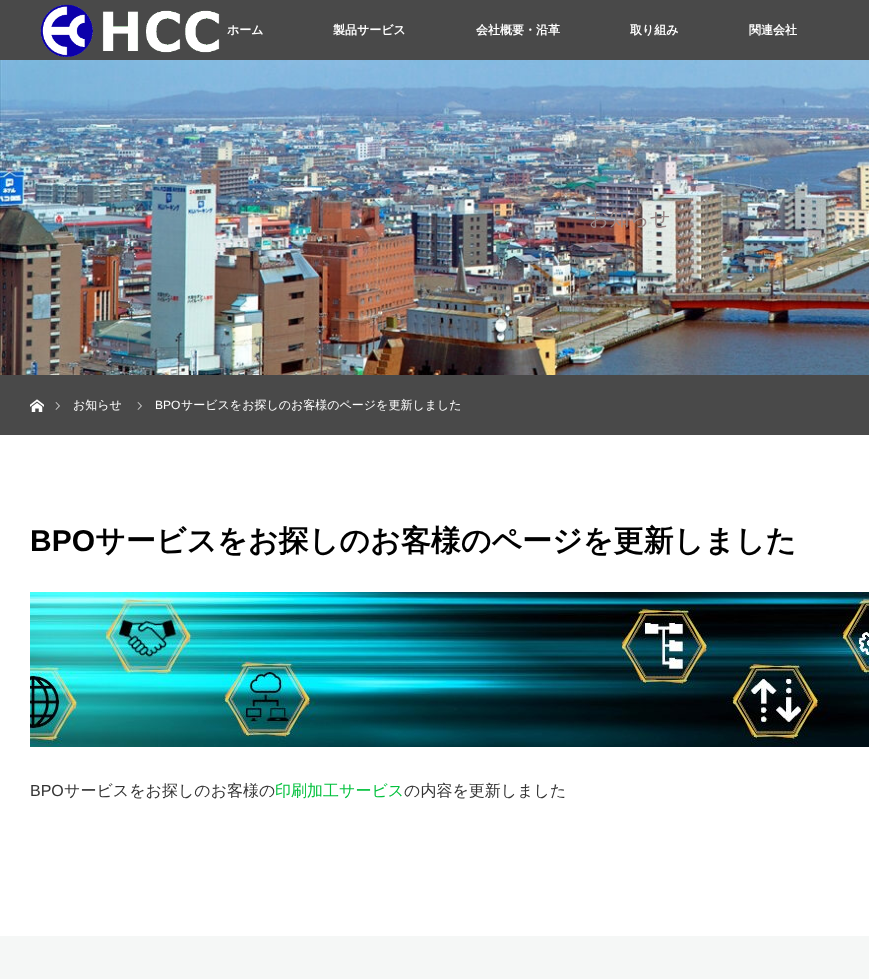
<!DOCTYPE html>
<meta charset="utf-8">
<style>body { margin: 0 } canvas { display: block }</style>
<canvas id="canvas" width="869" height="979"></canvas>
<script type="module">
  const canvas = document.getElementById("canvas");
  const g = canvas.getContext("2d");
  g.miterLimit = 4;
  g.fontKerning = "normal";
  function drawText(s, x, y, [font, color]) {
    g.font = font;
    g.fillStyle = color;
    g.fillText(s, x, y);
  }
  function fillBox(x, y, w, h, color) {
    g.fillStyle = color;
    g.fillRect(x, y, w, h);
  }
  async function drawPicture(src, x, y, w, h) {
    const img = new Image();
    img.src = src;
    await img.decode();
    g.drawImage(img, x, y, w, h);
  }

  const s1 = ["bold 12px WenQuanYi Zen Hei", "#FFFFFF"];
  const s2 = ["500 20px WenQuanYi Zen Hei", "#9A8989"];
  const s3 = ["500 12px WenQuanYi Zen Hei", "#FFFFFF"];
  const s4 = ["12px Liberation Sans", "#FFFFFF"];
  const s5 = ["bold 30px Liberation Sans", "#000000"];
  const s6 = ["bold 30px WenQuanYi Zen Hei", "#000000"];
  const s7 = ["16px Liberation Sans", "#333333"];
  const s8 = ["500 16px WenQuanYi Zen Hei", "#333333"];
  const s9 = ["500 16px WenQuanYi Zen Hei", "#03C13D"];

  fillBox(0, 0, 869, 979, "#FFFFFF");
  fillBox(0, 0, 869, 60, "#494949");
  await drawPicture("pic1.png", 40, 4, 180, 53);
  drawText("ホーム", 227, 34, s1);
  drawText("製品サービス", 333, 34, s1);
  drawText("会社概要・沿革", 476, 34, s1);
  drawText("取り組み", 630, 34, s1);
  drawText("関連会社", 749, 34, s1);
  await drawPicture("pic2.png", 0, 60, 869, 315);
  drawText("お知らせ", 589, 225, s2);
  fillBox(0, 375, 869, 60, "#494949");
  await drawPicture("pic3.png", 30, 399, 14, 13);
  await drawPicture("pic4.png", 55, 402, 5, 8);
  drawText("お知らせ", 73, 409, s3);
  await drawPicture("pic4.png", 137, 402, 5, 8);
  drawText("BPO", 155, 409, s4);
  drawText("サービスをお探しのお客様のページを更新しました", 181, 409, s3);
  drawText("BPO", 30, 551, s5);
  drawText("サービスをお探しのお客様のページを更新しました", 95, 551, s6);
  await drawPicture("pic5.png", 30, 592, 839, 155);
  drawText("BPO", 30, 796, s7);
  drawText("サービスをお探しのお客様の", 64, 796, s8);
  drawText("印刷加工サービス", 275, 796, s9);
  drawText("の内容を更新しました", 404, 796, s8);
  fillBox(0, 936, 869, 43, "#F5F7F6");
</script>
